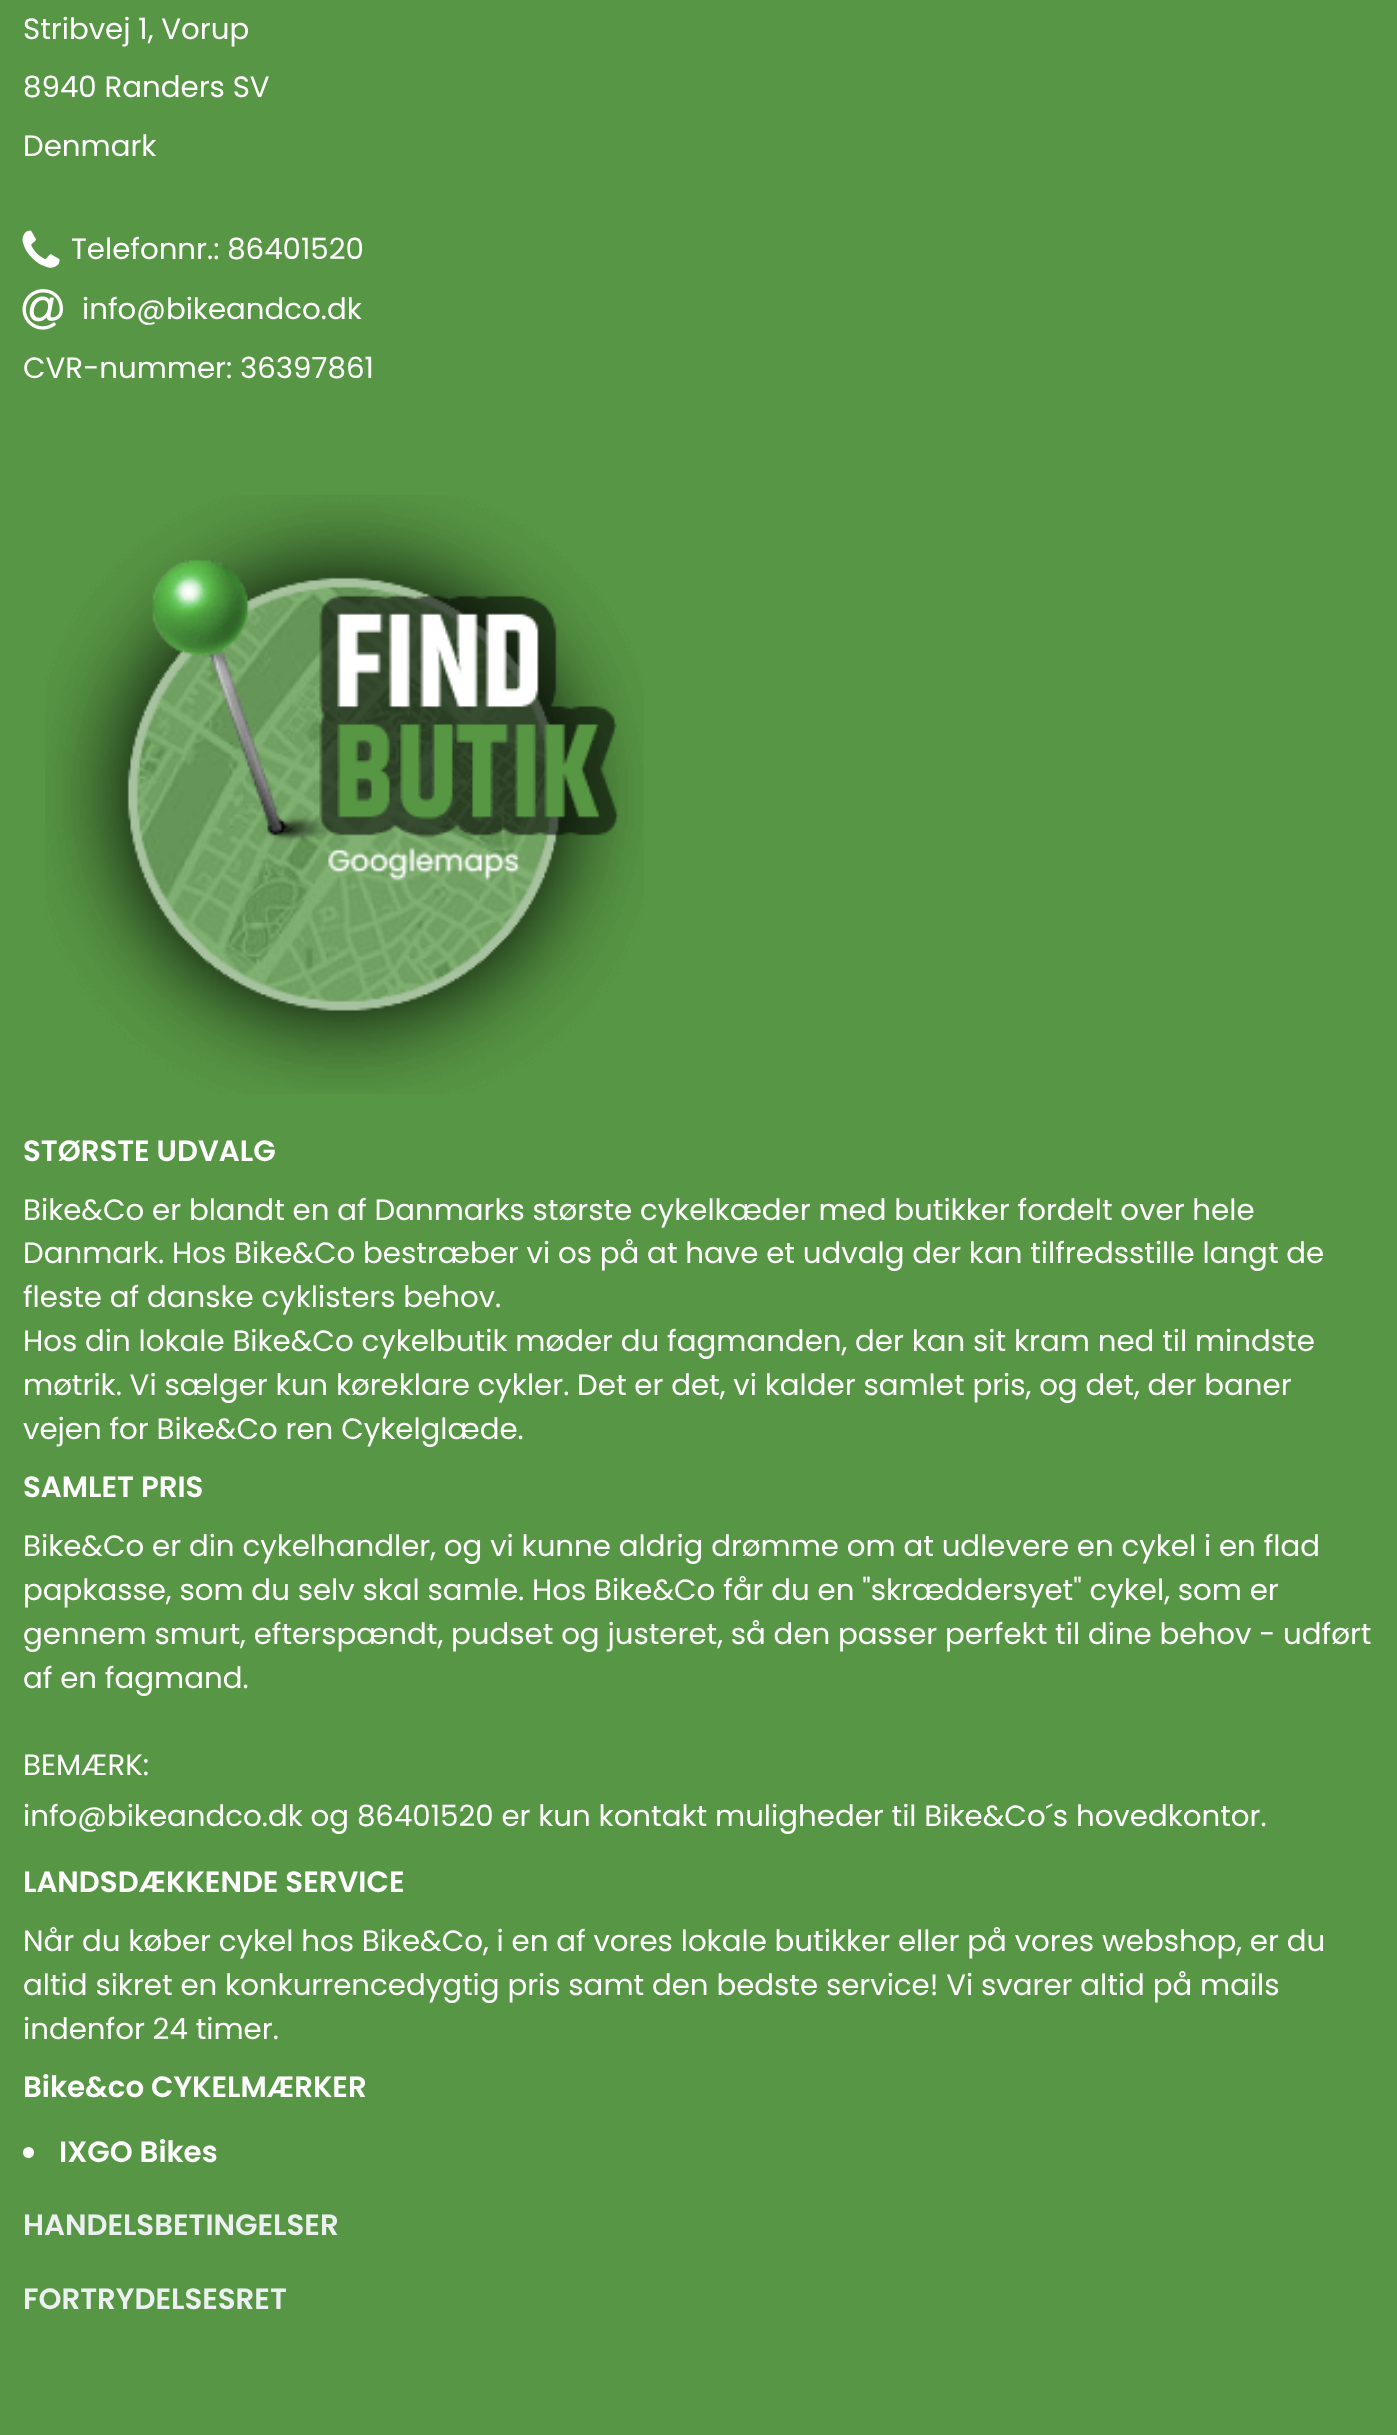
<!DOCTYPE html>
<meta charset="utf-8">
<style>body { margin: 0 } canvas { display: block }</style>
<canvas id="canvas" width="1397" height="2435"></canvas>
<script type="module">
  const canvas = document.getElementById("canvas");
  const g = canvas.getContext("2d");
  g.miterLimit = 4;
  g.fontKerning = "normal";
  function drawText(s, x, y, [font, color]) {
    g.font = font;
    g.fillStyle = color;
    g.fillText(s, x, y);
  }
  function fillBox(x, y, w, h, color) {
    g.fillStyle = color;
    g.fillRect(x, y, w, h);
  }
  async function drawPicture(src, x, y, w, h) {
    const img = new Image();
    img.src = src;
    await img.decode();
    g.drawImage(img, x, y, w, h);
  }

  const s1 = ["29.25px Poppins", "#FFFFFF"];
  const s2 = ["600 29.25px Poppins", "#FFFFFF"];
  const s3 = ["600 29.25px Poppins", "#ECF0F1"];

  fillBox(0, 0, 1397, 2435, "#579644");
  drawText("Stribvej 1, Vorup", 23, 39, s1);
  drawText("8940 Randers SV", 23, 97, s1);
  drawText("Denmark", 23, 156, s1);
  await drawPicture("pic1.png", 22, 230, 38, 38);
  drawText("Telefonnr.: 86401520", 71, 259, s1);
  await drawPicture("pic2.png", 22, 289, 41, 41);
  drawText("info@bikeandco.dk", 82, 319, s1);
  drawText("CVR-nummer: 36397861", 23, 378, s1);
  await drawPicture("pic3.png", 45, 495, 599, 599);
  drawText("STØRSTE UDVALG", 23, 1161, s2);
  drawText("Bike&Co er blandt en af Danmarks største cykelkæder med butikker fordelt over hele", 23, 1220, s1);
  drawText("Danmark. Hos Bike&Co bestræber vi os på at have et udvalg der kan tilfredsstille langt de", 23, 1263, s1);
  drawText("fleste af danske cyklisters behov.", 23, 1307, s1);
  drawText("Hos din lokale Bike&Co cykelbutik møder du fagmanden, der kan sit kram ned til mindste", 23, 1351, s1);
  drawText("møtrik. Vi sælger kun køreklare cykler. Det er det, vi kalder samlet pris, og det, der baner", 23, 1395, s1);
  drawText("vejen for Bike&Co ren Cykelglæde.", 23, 1439, s1);
  drawText("SAMLET PRIS", 23, 1497, s2);
  drawText("Bike&Co er din cykelhandler, og vi kunne aldrig drømme om at udlevere en cykel i en flad", 23, 1556, s1);
  drawText("papkasse, som du selv skal samle. Hos Bike&Co får du en \"skræddersyet\" cykel, som er", 23, 1600, s1);
  drawText("gennem smurt, efterspændt, pudset og justeret, så den passer perfekt til dine behov - udført", 23, 1644, s1);
  drawText("af en fagmand.", 23, 1688, s1);
  drawText("BEMÆRK:", 23, 1775, s1);
  drawText("info@bikeandco.dk og 86401520 er kun kontakt muligheder til Bike&Co´s hovedkontor.", 23, 1826, s1);
  drawText("LANDSDÆKKENDE SERVICE", 23, 1892, s2);
  drawText("Når du køber cykel hos Bike&Co, i en af vores lokale butikker eller på vores webshop, er du", 23, 1951, s1);
  drawText("altid sikret en konkurrencedygtig pris samt den bedste service! Vi svarer altid på mails", 23, 1995, s1);
  drawText("indenfor 24 timer.", 23, 2039, s1);
  drawText("Bike&co CYKELMÆRKER", 23, 2097, s2);
  g.beginPath();
  g.arc(28.5, 2152.5, 5.5, 0, Math.PI * 2);
  g.fill();
  drawText("IXGO Bikes", 59, 2162, s2);
  drawText("HANDELSBETINGELSER", 23, 2235, s3);
  drawText("FORTRYDELSESRET", 23, 2309, s3);
</script>
